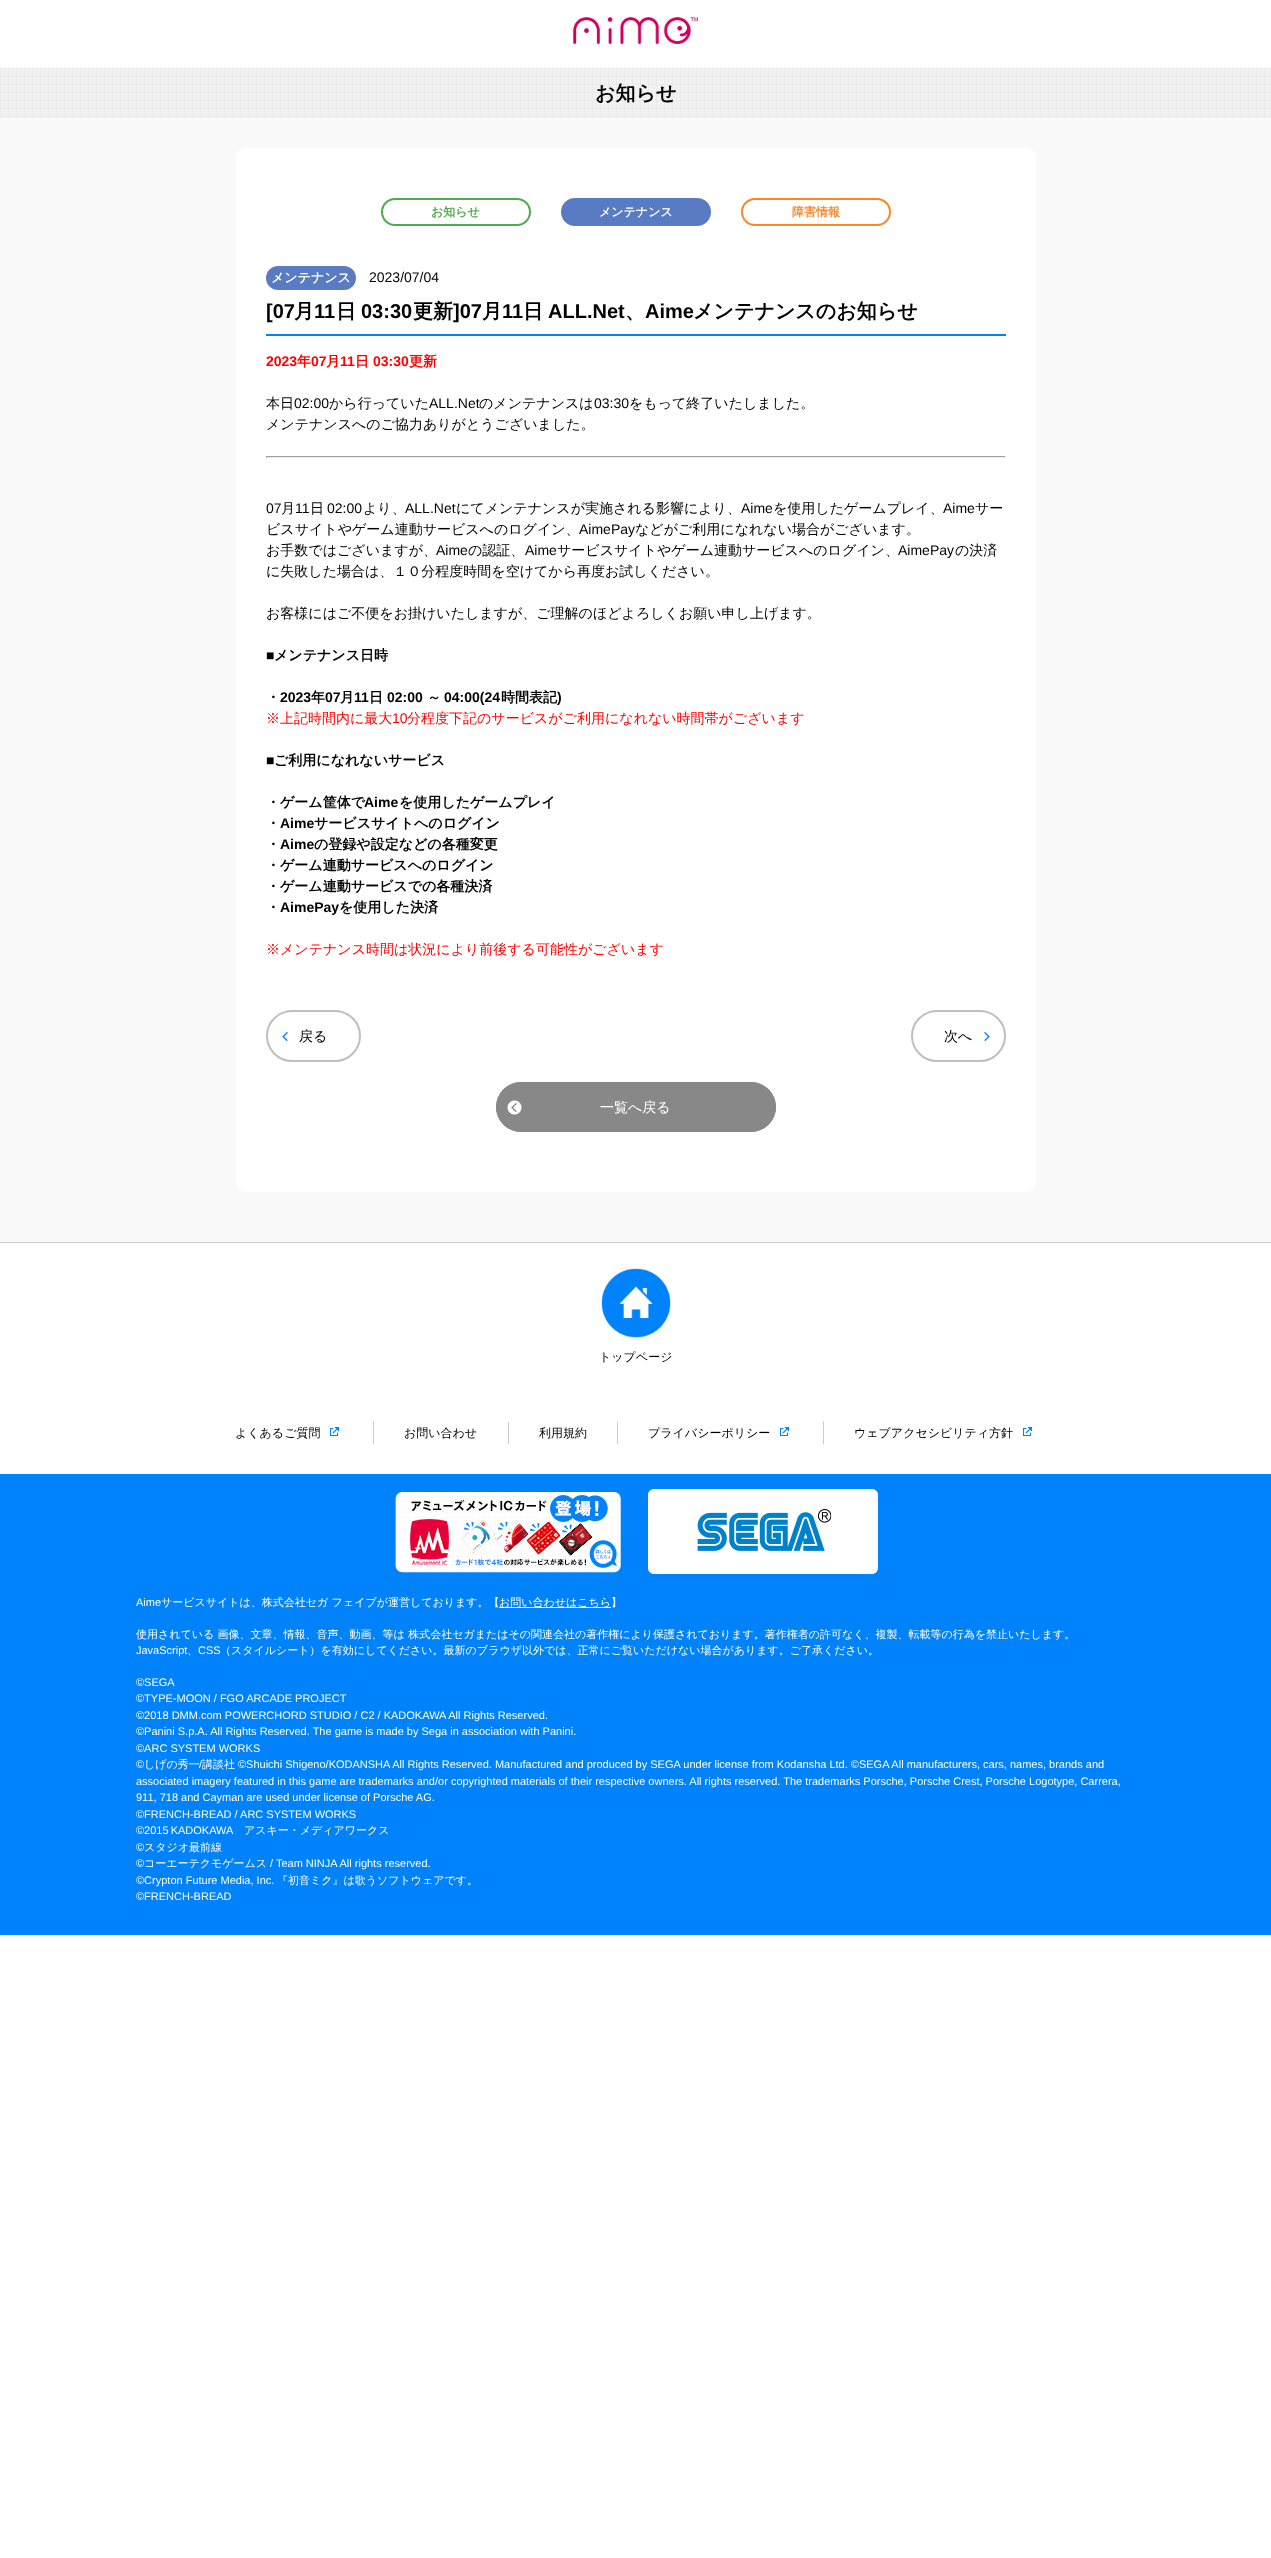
<!DOCTYPE html>
<meta charset="utf-8">
<style>body { margin: 0 } canvas { display: block }</style>
<canvas id="canvas" width="1271" height="2558"></canvas>
<script type="module">
  const canvas = document.getElementById("canvas");
  const g = canvas.getContext("2d");
  g.miterLimit = 4;
  g.fontKerning = "normal";
  function drawText(s, x, y, [font, color]) {
    g.font = font;
    g.fillStyle = color;
    g.fillText(s, x, y);
  }
  function fillBox(x, y, w, h, color) {
    g.fillStyle = color;
    g.fillRect(x, y, w, h);
  }
  function fillRounded(x, y, w, h, r, color) {
    g.fillStyle = color;
    g.beginPath();
    g.roundRect(x, y, w, h, r);
    g.fill();
  }
  async function drawPicture(src, x, y, w, h) {
    const img = new Image();
    img.src = src;
    await img.decode();
    g.drawImage(img, x, y, w, h);
  }

  const s1 = ["bold 20px WenQuanYi Zen Hei", "#000000"];
  const s2 = ["bold 12px WenQuanYi Zen Hei", "#50AB4E"];
  const s3 = ["bold 12px WenQuanYi Zen Hei", "#FFFFFF"];
  const s4 = ["bold 12px WenQuanYi Zen Hei", "#FA8728"];
  const s5 = ["bold 13px WenQuanYi Zen Hei", "#FFFFFF"];
  const s6 = ["14px Liberation Sans", "#000000"];
  const s7 = ["bold 20px Liberation Sans", "#000000"];
  const s8 = ["bold 14px Liberation Sans", "#FF0000"];
  const s9 = ["bold 14px WenQuanYi Zen Hei", "#FF0000"];
  const s10 = ["500 14px WenQuanYi Zen Hei", "#000000"];
  const s11 = ["bold 14px Liberation Sans", "#000000"];
  const s12 = ["bold 14px WenQuanYi Zen Hei", "#000000"];
  const s13 = ["500 14px WenQuanYi Zen Hei", "#FF0000"];
  const s14 = ["14px Liberation Sans", "#FF0000"];
  const s15 = ["500 14px WenQuanYi Zen Hei", "#FFFFFF"];
  const s16 = ["500 12px WenQuanYi Zen Hei", "#000000"];
  const s17 = ["11px Liberation Sans", "#FFFFFF"];
  const s18 = ["500 11px WenQuanYi Zen Hei", "#FFFFFF"];

  fillBox(0, 0, 1271, 2558, "#FFFFFF");
  fillBox(0, 118, 1271, 1124, "#F9F9F9");
  await drawPicture("pic1.png", 573, 17, 125, 27);
  await drawPicture("pic2.png", 0, 68, 1271, 50);
  drawText("お知らせ", 595, 100, s1);
  fillRounded(236, 148, 800, 1044, 10, "#FFFFFF");
  g.beginPath();
  g.roundRect(382, 199, 148, 26, 13);
  g.strokeStyle = "#50AB4E";
  g.lineWidth = 2;
  g.stroke();
  drawText("お知らせ", 431, 216, s2);
  g.fillStyle = "#587BC2";
  g.beginPath();
  g.roundRect(562, 199, 148, 26, 13);
  g.fill();
  g.strokeStyle = "#587BC2";
  g.stroke();
  drawText("メンテナンス", 599, 216, s3);
  g.beginPath();
  g.roundRect(742, 199, 148, 26, 13);
  g.strokeStyle = "#FA8728";
  g.stroke();
  drawText("障害情報", 792, 216, s4);
  fillRounded(266, 266, 90, 24, 12, "#587BC2");
  drawText("メンテナンス", 271, 282, s5);
  drawText("2023/07/04", 369, 282, s6);
  fillBox(266, 334, 740, 2, "#0082FA");
  drawText("[07", 266, 318, s7);
  drawText("月", 294, 318, s1);
  drawText("11", 314, 318, s7);
  drawText("日", 336, 318, s1);
  drawText("03:30", 361, 318, s7);
  drawText("更新", 413, 318, s1);
  drawText("]07", 453, 318, s7);
  drawText("月", 482, 318, s1);
  drawText("11", 502, 318, s7);
  drawText("日", 523, 318, s1);
  drawText("ALL.Net", 548, 318, s7);
  drawText("、", 625, 318, s1);
  drawText("Aime", 645, 318, s7);
  drawText("メンテナンスのお知らせ", 693, 318, s1);
  drawText("2023", 266, 366, s8);
  drawText("年", 297, 366, s9);
  drawText("07", 311, 366, s8);
  drawText("月", 326, 366, s9);
  drawText("11", 340, 366, s8);
  drawText("日", 355, 366, s9);
  drawText("03:30", 373, 366, s8);
  drawText("更新", 409, 366, s9);
  drawText("本日", 266, 408, s10);
  drawText("02:00", 294, 408, s6);
  drawText("から行っていた", 329, 408, s10);
  drawText("ALL.Net", 429, 408, s6);
  drawText("のメンテナンスは", 479, 408, s10);
  drawText("03:30", 594, 408, s6);
  drawText("をもって終了いたしました。", 629, 408, s10);
  drawText("メンテナンスへのご協力ありがとうございました。", 266, 429, s10);
  fillBox(266, 456, 740, 1, "#9F9F9F");
  fillBox(1005, 456, 1, 2, "#EEEEEE");
  fillBox(266, 457, 740, 1, "#EEEEEE");
  fillBox(266, 456, 1, 2, "#9F9F9F");
  drawText("07", 266, 513, s6);
  drawText("月", 281, 513, s10);
  drawText("11", 295, 513, s6);
  drawText("日", 310, 513, s10);
  drawText("02:00", 327, 513, s6);
  drawText("より、", 363, 513, s10);
  drawText("ALL.Net", 405, 513, s6);
  drawText("にてメンテナンスが実施される影響により、", 456, 513, s10);
  drawText("Aime", 741, 513, s6);
  drawText("を使用したゲームプレイ、", 773, 513, s10);
  drawText("Aime", 943, 513, s6);
  drawText("サー", 975, 513, s10);
  drawText("ビスサイトやゲーム連動サービスへのログイン、", 266, 534, s10);
  drawText("AimePay", 579, 534, s6);
  drawText("などがご利用になれない場合がございます。", 635, 534, s10);
  drawText("お手数ではございますが、", 266, 555, s10);
  drawText("Aime", 436, 555, s6);
  drawText("の認証、", 468, 555, s10);
  drawText("Aime", 525, 555, s6);
  drawText("サービスサイトやゲーム連動サービスへのログイン、", 557, 555, s10);
  drawText("AimePay", 898, 555, s6);
  drawText("の決済", 955, 555, s10);
  drawText("に失敗した場合は、１０分程度時間を空けてから再度お試しください。", 266, 576, s10);
  drawText("お客様にはご不便をお掛けいたしますが、ご理解のほどよろしくお願い申し上げます。", 266, 618, s10);
  drawText("■", 266, 660, s11);
  drawText("メンテナンス日時", 274, 660, s12);
  drawText("・", 266, 702, s12);
  drawText("2023", 280, 702, s11);
  drawText("年", 311, 702, s12);
  drawText("07", 325, 702, s11);
  drawText("月", 340, 702, s12);
  drawText("11", 354, 702, s11);
  drawText("日", 369, 702, s12);
  drawText("02:00", 387, 702, s11);
  drawText("～", 427, 702, s12);
  drawText("04:00(24", 444, 702, s11);
  drawText("時間表記", 501, 702, s12);
  drawText(")", 557, 702, s11);
  drawText("※上記時間内に最大", 266, 723, s13);
  drawText("10", 392, 723, s14);
  drawText("分程度下記のサービスがご利用になれない時間帯がございます", 407, 723, s13);
  drawText("■", 266, 765, s11);
  drawText("ご利用になれないサービス", 274, 765, s12);
  drawText("・ゲーム筐体で", 266, 807, s12);
  drawText("Aime", 364, 807, s11);
  drawText("を使用したゲームプレイ", 399, 807, s12);
  drawText("・", 266, 828, s12);
  drawText("Aime", 280, 828, s11);
  drawText("サービスサイトへのログイン", 314, 828, s12);
  drawText("・", 266, 849, s12);
  drawText("Aime", 280, 849, s11);
  drawText("の登録や設定などの各種変更", 314, 849, s12);
  drawText("・ゲーム連動サービスへのログイン", 266, 870, s12);
  drawText("・ゲーム連動サービスでの各種決済", 266, 891, s12);
  drawText("・", 266, 912, s12);
  drawText("AimePay", 280, 912, s11);
  drawText("を使用した決済", 339, 912, s12);
  drawText("※メンテナンス時間は状況により前後する可能性がございます", 266, 954, s13);
  await drawPicture("pic3.png", 282, 1032, 6, 9);
  g.beginPath();
  g.roundRect(267, 1011, 93, 50, 25);
  g.strokeStyle = "#BFBFBF";
  g.stroke();
  drawText("戻る", 299, 1041, s10);
  await drawPicture("pic4.png", 984, 1032, 6, 9);
  g.beginPath();
  g.roundRect(912, 1011, 93, 50, 25);
  g.stroke();
  drawText("次へ", 944, 1041, s10);
  fillRounded(496, 1082, 280, 50, 25, "#888888");
  await drawPicture("pic5.png", 507, 1100, 15, 15);
  g.beginPath();
  g.roundRect(496.5, 1082.5, 279, 49, 24.5);
  g.strokeStyle = "#888888";
  g.lineWidth = 1;
  g.stroke();
  drawText("一覧へ戻る", 600, 1112, s15);
  fillBox(0, 1242, 1271, 1, "#CCCCCC");
  await drawPicture("pic6.png", 601, 1268, 70, 70);
  drawText("トップページ", 599, 1361, s16);
  fillBox(373, 1421, 1, 23, "#CCCCCC");
  drawText("よくあるご質問", 235, 1437, s16);
  await drawPicture("pic7.png", 330, 1427, 9, 9);
  fillBox(508, 1422, 1, 22, "#CCCCCC");
  drawText("お問い合わせ", 404, 1437, s16);
  fillBox(617, 1422, 1, 22, "#CCCCCC");
  drawText("利用規約", 539, 1437, s16);
  fillBox(823, 1421, 1, 23, "#CCCCCC");
  drawText("プライバシーポリシー", 648, 1437, s16);
  await drawPicture("pic7.png", 780, 1427, 9, 9);
  drawText("ウェブアクセシビリティ方針", 854, 1437, s16);
  await drawPicture("pic8.png", 1023, 1427, 9, 9);
  fillBox(0, 1474, 1271, 461, "#0082FA");
  await drawPicture("pic9.png", 395, 1492, 226, 81);
  await drawPicture("pic10.png", 648, 1489, 230, 85);
  drawText("Aime", 136, 1606, s17);
  drawText("サービスサイトは、株式会社セガ フェイブが運営しております。【", 161, 1606, s18);
  fillBox(499, 1607, 112, 1, "#FFFFFF");
  drawText("お問い合わせはこちら】", 499, 1606, s18);
  drawText("使用されている 画像、文章、情報、音声、動画、等は 株式会社セガまたはその関連会社の著作権により保護されております。著作権者の許可なく、複製、転載等の行為を禁止いたします。", 136, 1638, s18);
  drawText("JavaScript", 136, 1654, s17);
  drawText("、", 187, 1654, s18);
  drawText("CSS", 198, 1654, s17);
  drawText("（スタイルシート）を有効にしてください。最新のブラウザ以外では、正常にご覧いただけない場合があります。ご了承ください。", 220, 1654, s18);
  drawText("©SEGA", 136, 1686, s17);
  drawText("©TYPE-MOON / FGO ARCADE PROJECT", 136, 1702, s17);
  drawText("©2018 DMM.com POWERCHORD STUDIO / C2 / KADOKAWA All Rights Reserved.", 136, 1719, s17);
  drawText("©Panini S.p.A. All Rights Reserved. The game is made by Sega in association with Panini.", 136, 1735, s17);
  drawText("©ARC SYSTEM WORKS", 136, 1752, s17);
  drawText("©", 136, 1768, s17);
  drawText("しげの秀一", 144, 1768, s18);
  drawText("/", 199, 1768, s17);
  drawText("講談社", 202, 1768, s18);
  drawText("©Shuichi Shigeno/KODANSHA All Rights Reserved. Manufactured and produced by SEGA under license from Kodansha Ltd. ©SEGA All manufacturers, cars, names, brands and", 238, 1768, s17);
  drawText("associated imagery featured in this game are trademarks and/or copyrighted materials of their respective owners. All rights reserved. The trademarks Porsche, Porsche Crest, Porsche Logotype, Carrera,", 136, 1785, s17);
  drawText("911, 718 and Cayman are used under license of Porsche AG.", 136, 1801, s17);
  drawText("©FRENCH-BREAD / ARC SYSTEM WORKS", 136, 1818, s17);
  g.wordSpacing = "-1px";
  drawText("©2015 KADOKAWA", 136, 1834, s17);
  g.wordSpacing = "0px";
  drawText("アスキー・メディアワークス", 244, 1834, s18);
  drawText("©", 136, 1851, s17);
  drawText("スタジオ最前線", 144, 1851, s18);
  drawText("©", 136, 1867, s17);
  drawText("コーエーテクモゲームス", 144, 1867, s18);
  drawText("/ Team NINJA All rights reserved.", 270, 1867, s17);
  drawText("©Crypton Future Media, Inc.", 136, 1884, s17);
  drawText("『初音ミク』は歌うソフトウェアです。", 277, 1884, s18);
  drawText("©FRENCH-BREAD", 136, 1900, s17);
</script>
